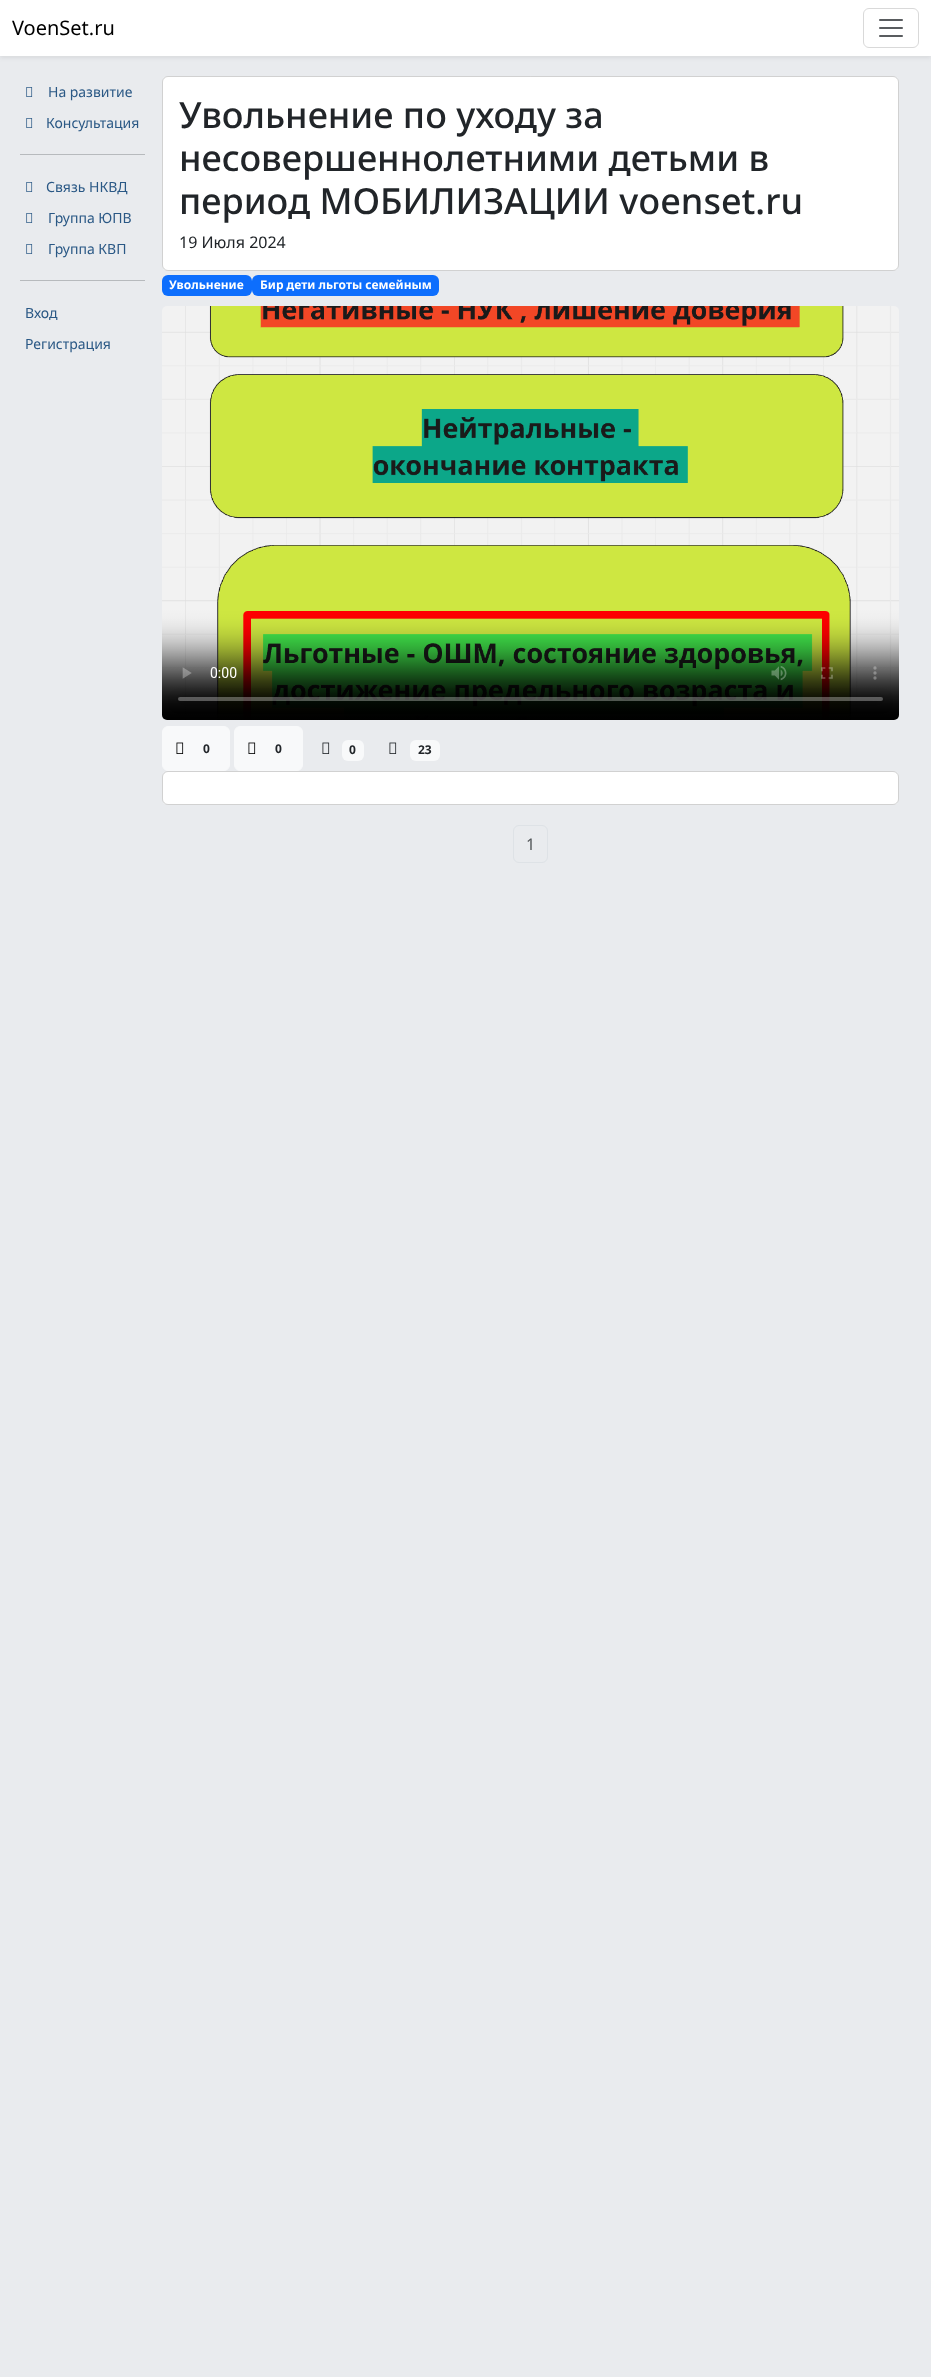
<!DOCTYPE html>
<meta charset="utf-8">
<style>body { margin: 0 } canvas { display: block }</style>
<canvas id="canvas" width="931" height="2377"></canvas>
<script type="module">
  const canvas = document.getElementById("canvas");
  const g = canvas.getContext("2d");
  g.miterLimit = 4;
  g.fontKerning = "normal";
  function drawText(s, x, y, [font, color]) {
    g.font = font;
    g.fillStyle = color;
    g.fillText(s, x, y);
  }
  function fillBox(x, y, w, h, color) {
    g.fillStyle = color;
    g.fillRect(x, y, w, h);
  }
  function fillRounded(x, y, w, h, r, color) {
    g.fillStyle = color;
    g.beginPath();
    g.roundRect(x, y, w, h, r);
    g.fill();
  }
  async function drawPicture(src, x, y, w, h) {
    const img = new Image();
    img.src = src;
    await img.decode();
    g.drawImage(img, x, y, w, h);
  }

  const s1 = ["20px Noto Sans", "#000000"];
  const s2 = ["14px Noto Sans", "#2A5885"];
  const s3 = ["500 36px Noto Sans", "#212529"];
  const s4 = ["16px Noto Sans", "#212529"];
  const s5 = ["bold 12px Noto Sans", "#FFFFFF"];
  const s6 = ["bold 12px Noto Sans", "#212529"];
  const s7 = ["16px Noto Sans", "#53575A"];

  fillBox(0, 0, 931, 2377, "#E9EBEE");
  g.fillStyle = "rgba(0, 0, 0, 0.07)";
  g.filter = "blur(2px)";
  g.beginPath();
  g.rect(0, 2, 931, 56);
  g.fill();
  g.filter = "none";
  fillBox(0, 0, 931, 56, "#FFFFFF");
  drawText("VoenSet.ru", 12, 35, s1);
  g.beginPath();
  g.roundRect(863.5, 8.5, 55, 39, 5.5);
  g.strokeStyle = "#D9D9D9";
  g.stroke();
  await drawPicture("pic1.png", 879, 19, 24, 18);
  await drawPicture("pic2.png", 26, 87, 7, 10);
  drawText("На развитие", 48, 97, s2);
  await drawPicture("pic2.png", 26, 118, 7, 10);
  drawText("Консультация", 46, 128, s2);
  fillBox(20, 154, 125, 1, "#B7BABD");
  await drawPicture("pic2.png", 26, 182, 7, 10);
  drawText("Связь НКВД", 46, 192, s2);
  await drawPicture("pic2.png", 26, 213, 7, 10);
  drawText("Группа ЮПВ", 48, 223, s2);
  await drawPicture("pic2.png", 26, 244, 7, 10);
  drawText("Группа КВП", 48, 254, s2);
  fillBox(20, 280, 125, 1, "#B7BABD");
  drawText("Вход", 25, 318, s2);
  drawText("Регистрация", 25, 349, s2);
  fillRounded(162, 76, 737, 195, 6, "#FFFFFF");
  g.beginPath();
  g.roundRect(162.5, 76.5, 736, 194, 5.5);
  g.strokeStyle = "rgba(0, 0, 0, 0.18)";
  g.stroke();
  drawText("Увольнение по уходу за", 179, 128, s3);
  drawText("несовершеннолетними детьми в", 179, 171, s3);
  drawText("период МОБИЛИЗАЦИИ voenset.ru", 179, 214, s3);
  drawText("19 Июля 2024", 179, 248, s4);
  fillRounded(162, 275, 90, 21, 6, "#0D6EFD");
  drawText("Увольнение", 169, 289, s5);
  fillRounded(252, 275, 187, 21, 6, "#0D6EFD");
  drawText("Бир дети льготы семейным", 260, 289, s5);
  await drawPicture("pic3.png", 162, 306, 737, 414);
  g.fillStyle = "#F8F9FA";
  g.beginPath();
  g.roundRect(162.5, 726.5, 67, 44, 5.5);
  g.fill();
  g.strokeStyle = "#F8F9FA";
  g.stroke();
  await drawPicture("pic4.png", 176, 742, 8, 12);
  drawText("0", 203, 753, s6);
  g.fillStyle = "#F8F9FA";
  g.beginPath();
  g.roundRect(234.5, 726.5, 68, 44, 5.5);
  g.fill();
  g.stroke();
  await drawPicture("pic4.png", 248, 742, 8, 12);
  drawText("0", 275, 753, s6);
  await drawPicture("pic5.png", 322, 742, 8, 12);
  fillRounded(342, 740, 22, 21, 6, "#F8F9FA");
  drawText("0", 349, 754, s6);
  await drawPicture("pic5.png", 389, 742, 8, 12);
  fillRounded(410, 740, 30, 21, 6, "#F8F9FA");
  drawText("23", 418, 754, s6);
  fillRounded(162, 771, 737, 34, 6, "#FFFFFF");
  g.beginPath();
  g.roundRect(162.5, 771.5, 736, 33, 5.5);
  g.strokeStyle = "rgba(0, 0, 0, 0.18)";
  g.stroke();
  g.beginPath();
  g.roundRect(513.5, 825.5, 34, 37, 5.5);
  g.strokeStyle = "#DEE2E6";
  g.stroke();
  drawText("1", 526, 850, s7);
</script>
